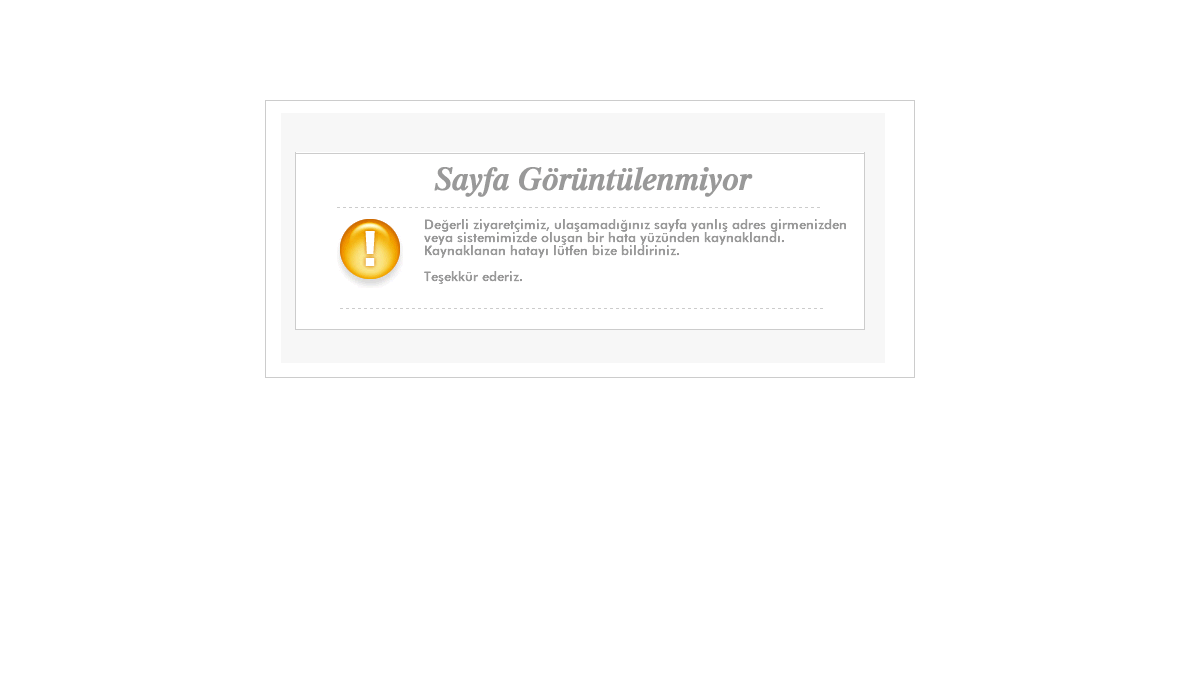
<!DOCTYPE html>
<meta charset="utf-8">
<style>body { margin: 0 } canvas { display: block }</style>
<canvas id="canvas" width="1179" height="700"></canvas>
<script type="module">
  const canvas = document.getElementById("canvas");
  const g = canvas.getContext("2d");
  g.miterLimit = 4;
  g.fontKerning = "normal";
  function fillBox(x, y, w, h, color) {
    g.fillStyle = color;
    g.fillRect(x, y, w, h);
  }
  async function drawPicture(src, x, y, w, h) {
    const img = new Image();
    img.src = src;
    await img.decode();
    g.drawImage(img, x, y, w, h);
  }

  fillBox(0, 0, 1179, 700, "#FFFFFF");
  g.strokeStyle = "#CCCCCC";
  g.strokeRect(265.5, 100.5, 649, 277);
  await drawPicture("pic1.png", 281, 113, 604, 250);
</script>
